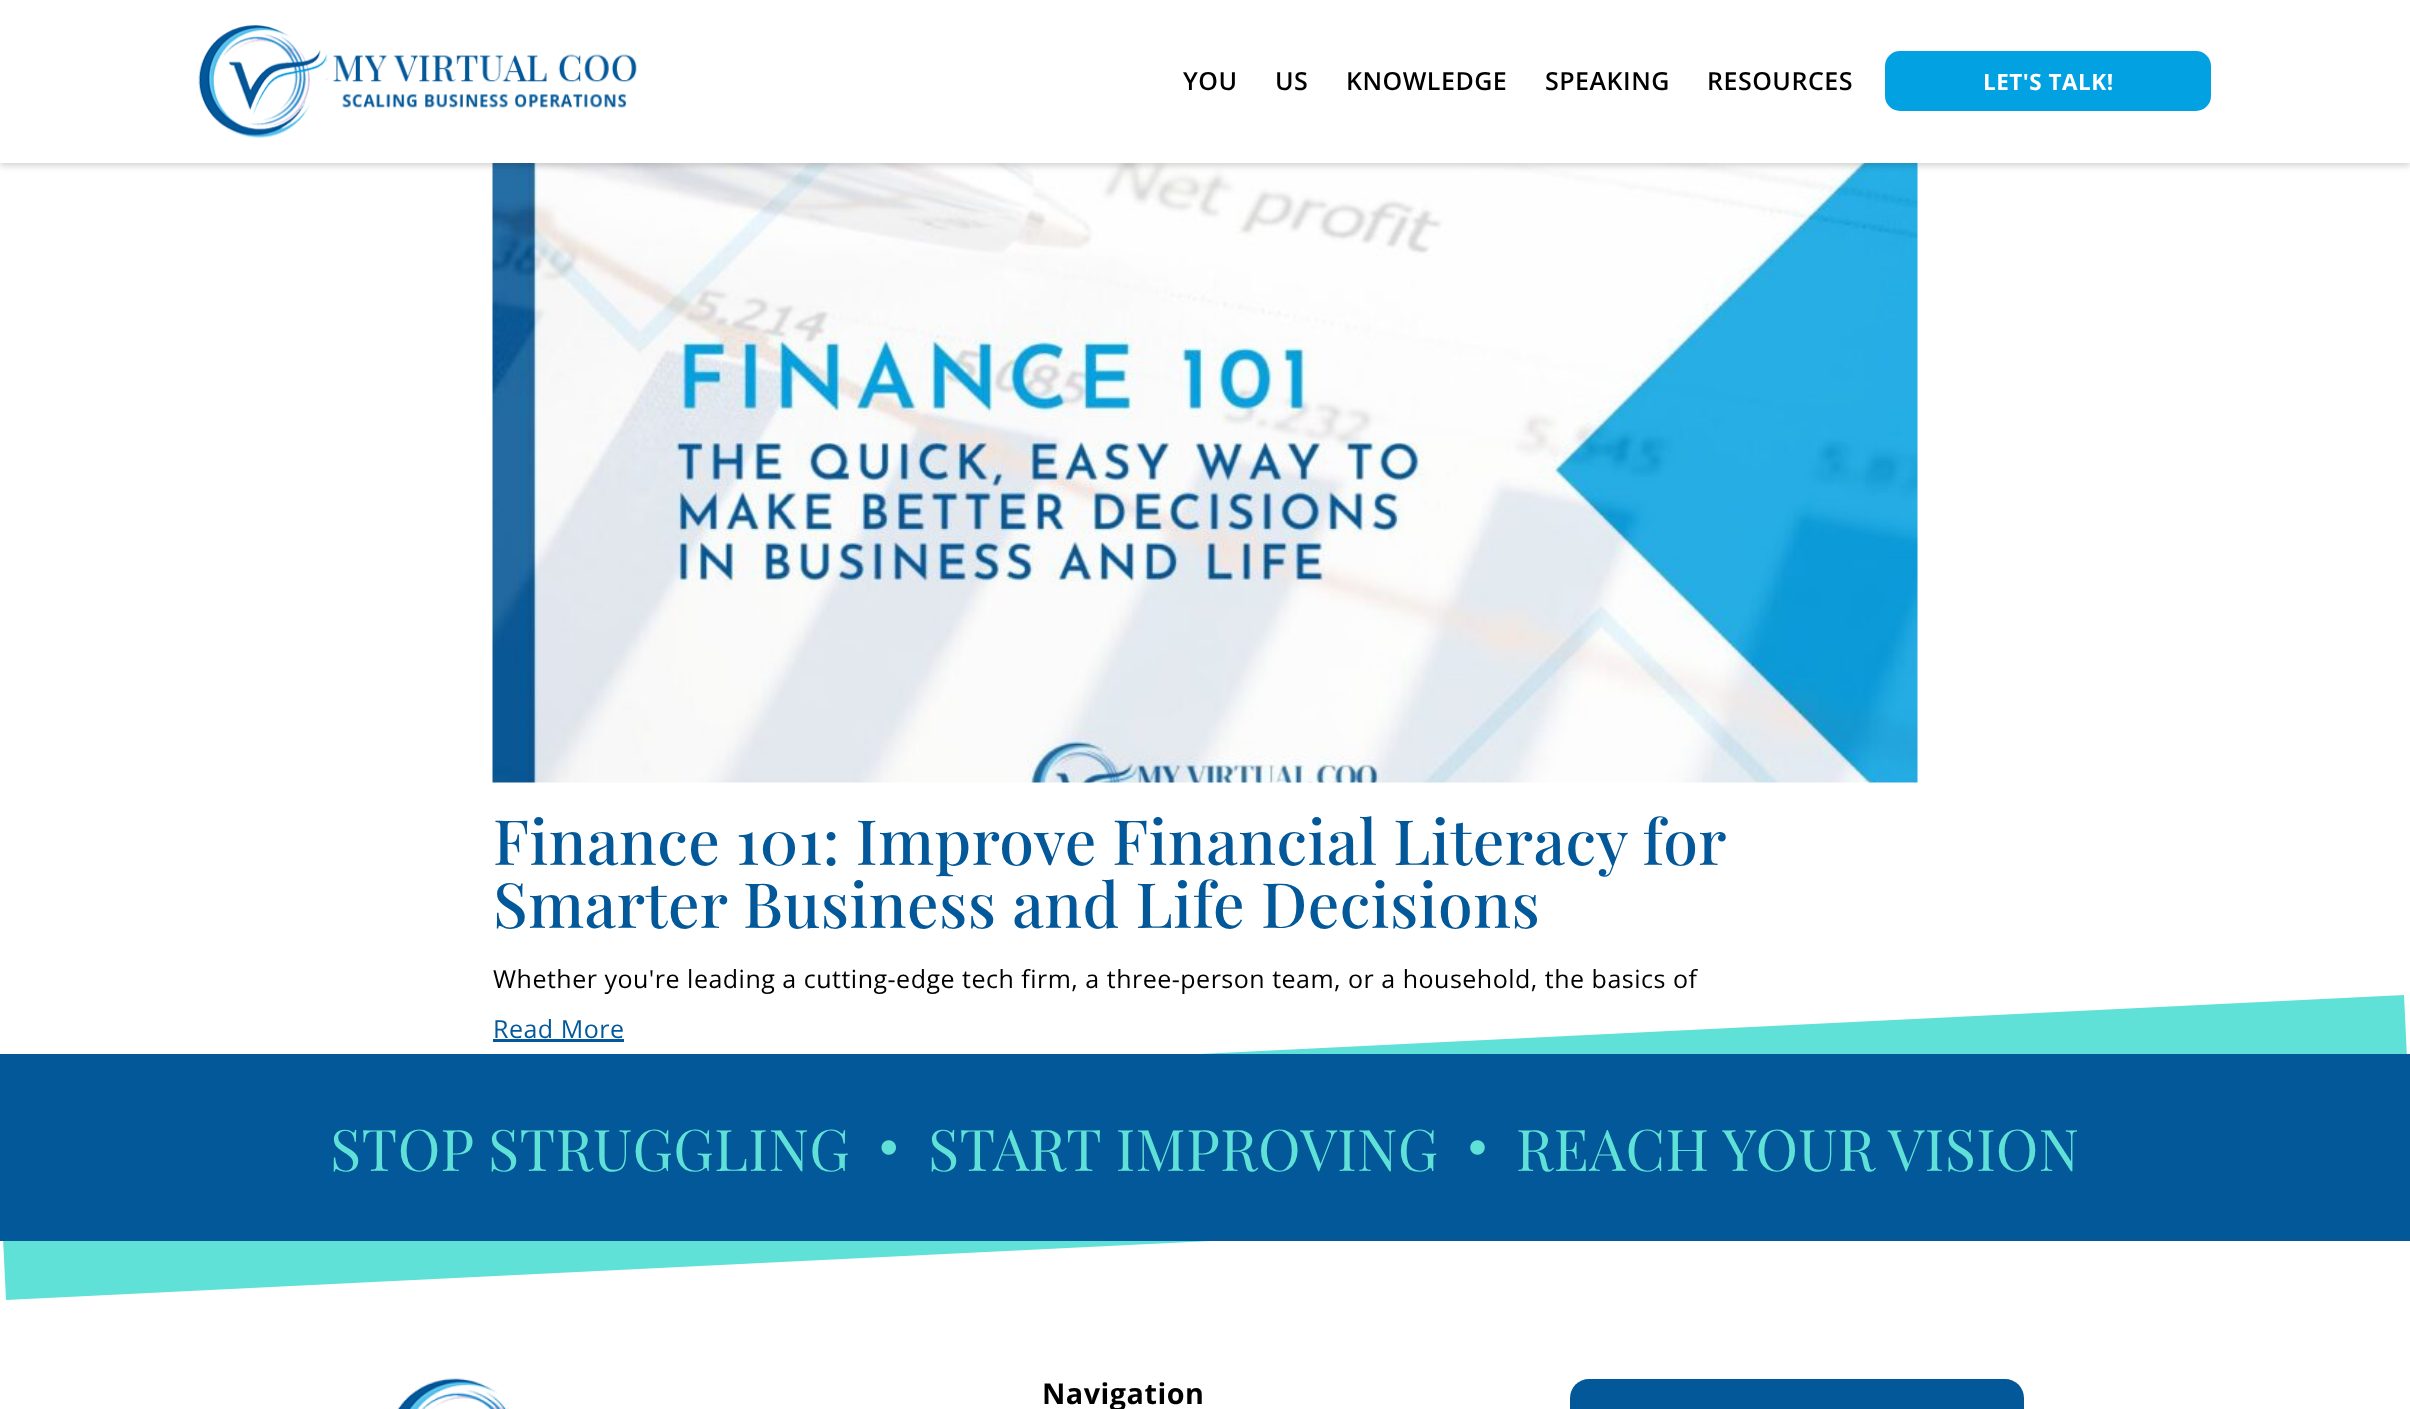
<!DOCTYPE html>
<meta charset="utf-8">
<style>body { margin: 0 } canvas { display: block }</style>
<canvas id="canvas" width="2410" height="1409"></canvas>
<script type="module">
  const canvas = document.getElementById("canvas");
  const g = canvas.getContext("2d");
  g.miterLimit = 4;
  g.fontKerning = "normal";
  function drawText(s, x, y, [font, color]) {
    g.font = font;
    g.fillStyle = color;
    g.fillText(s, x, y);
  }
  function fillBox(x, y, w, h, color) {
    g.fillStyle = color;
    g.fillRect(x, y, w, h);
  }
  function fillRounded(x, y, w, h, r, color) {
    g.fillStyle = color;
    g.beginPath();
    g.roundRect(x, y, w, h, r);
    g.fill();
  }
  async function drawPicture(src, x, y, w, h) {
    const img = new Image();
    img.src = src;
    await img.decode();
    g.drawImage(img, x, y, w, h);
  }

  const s1 = ["600 25px Open Sans", "#000000"];
  const s2 = ["bold 22.5px Open Sans", "#FFFFFF"];
  const s3 = ["500 62.5px Playfair Display", "#035899"];
  const s4 = ["25px Open Sans", "#000000"];
  const s5 = ["25px Open Sans", "#035899"];
  const s6 = ["57.5px Playfair Display", "#60E1D7"];
  const s7 = ["bold 28.75px Open Sans", "#000000"];

  fillBox(0, 0, 2410, 1409, "#FFFFFF");
  await drawPicture("pic2.png", 492, 163, 1426, 620);
  g.fillStyle = "rgba(0, 0, 0, 0.17)";
  g.filter = "blur(3px)";
  g.beginPath();
  g.rect(0, 4, 2410, 162);
  g.fill();
  g.filter = "none";
  fillBox(0, 0, 2410, 163, "#FFFFFF");
  await drawPicture("pic1.png", 198, 25, 439, 113);
  g.letterSpacing = "0.5px";
  drawText("YOU", 1183, 90, s1);
  drawText("US", 1275, 90, s1);
  drawText("KNOWLEDGE", 1346, 90, s1);
  drawText("SPEAKING", 1545, 90, s1);
  drawText("RESOURCES", 1707, 90, s1);
  fillRounded(1885, 51, 326, 60, 15, "#02A1E2");
  drawText("LET'S TALK!", 1983, 90, s2);
  g.wordSpacing = "-0.25px";
  drawText("Finance 101: Improve Financial Literacy for", 493, 865, s3);
  g.wordSpacing = "0px";
  drawText("Smarter Business and Life Decisions", 493, 928, s3);
  drawText("Whether you're leading a cutting-edge tech firm, a three-person team, or a household, the basics of", 493, 988, s4);
  g.fillStyle = "#60E1D7";
  g.beginPath();
  g.moveTo(-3, 1113);
  g.lineTo(2404, 995);
  g.lineTo(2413, 1182);
  g.lineTo(6, 1300);
  g.closePath();
  g.fill();
  drawText("Read More", 493, 1038, s5);
  fillBox(493, 1039, 131, 3, "#035899");
  fillBox(0, 1054, 2410, 187, "#035899");
  drawText("STOP STRUGGLING", 330, 1171, s6);
  await drawPicture("pic3.png", 881, 1140, 15, 15);
  drawText("START IMPROVING", 928, 1171, s6);
  await drawPicture("pic4.png", 1470, 1140, 15, 15);
  drawText("REACH YOUR VISION", 1516, 1171, s6);
  await drawPicture("pic5.png", 397, 1378, 112, 31);
  drawText("Navigation", 1042, 1404, s7);
  fillRounded(1570, 1379, 454, 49, 19, "#035899");
</script>
